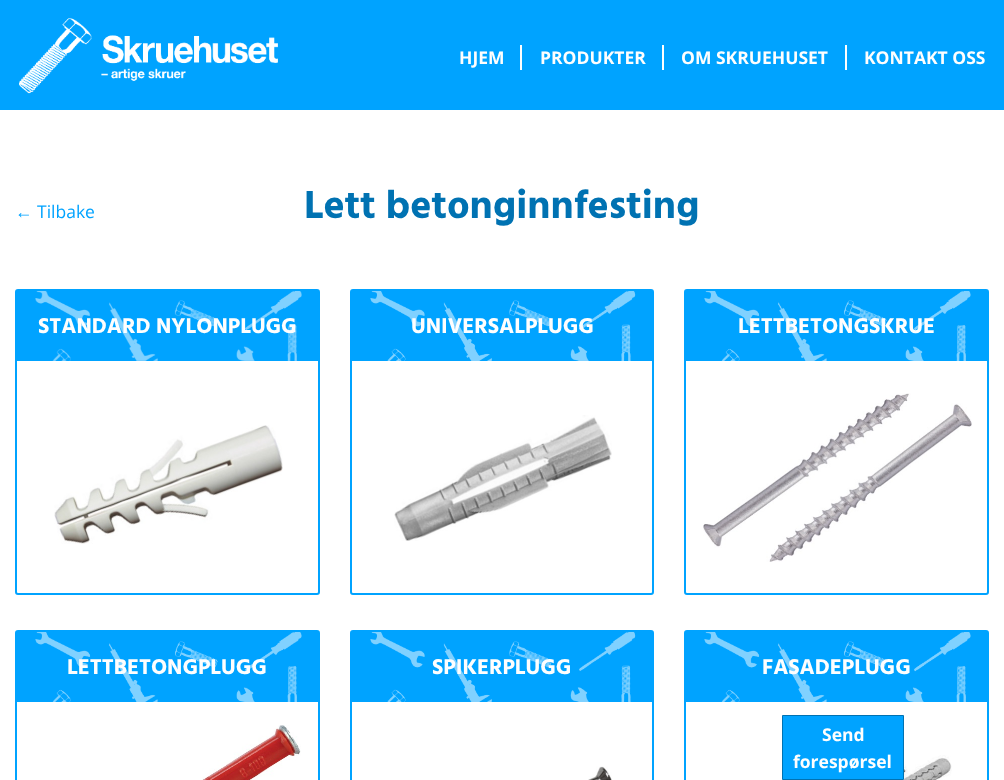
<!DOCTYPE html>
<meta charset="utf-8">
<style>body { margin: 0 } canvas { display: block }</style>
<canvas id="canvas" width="1004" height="780"></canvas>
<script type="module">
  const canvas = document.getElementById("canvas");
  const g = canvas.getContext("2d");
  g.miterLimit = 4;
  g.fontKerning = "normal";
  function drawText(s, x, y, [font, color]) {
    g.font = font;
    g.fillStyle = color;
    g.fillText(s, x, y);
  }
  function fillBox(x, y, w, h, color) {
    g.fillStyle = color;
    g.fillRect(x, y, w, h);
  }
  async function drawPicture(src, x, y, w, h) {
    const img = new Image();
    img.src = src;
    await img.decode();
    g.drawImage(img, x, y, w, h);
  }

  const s1 = ["bold 17.5px Open Sans", "#FEFEFE"];
  const s2 = ["17.5px Liberation Sans", "#00A3FF"];
  const s3 = ["17.5px Open Sans", "#00A3FF"];
  const s4 = ["bold 40px Hind", "#0072B2"];
  const s5 = ["bold 22px Hind", "#FEFEFE"];

  fillBox(0, 0, 1004, 780, "#FFFFFF");
  fillBox(0, 0, 1004, 110, "#00A3FF");
  await drawPicture("pic1.png", 19, 18, 259, 76);
  drawText("HJEM", 459, 64, s1);
  fillBox(520, 45, 2, 25, "#FEFEFE");
  drawText("PRODUKTER", 540, 64, s1);
  fillBox(662, 45, 2, 25, "#FEFEFE");
  drawText("OM SKRUEHUSET", 681, 64, s1);
  fillBox(845, 45, 2, 25, "#FEFEFE");
  drawText("KONTAKT OSS", 864, 64, s1);
  drawText("←", 15, 218, s2);
  drawText("Tilbake", 37, 218, s3);
  drawText("Lett betonginnfesting", 304, 218, s4);
  g.beginPath();
  g.roundRect(16, 290, 303, 304, 2);
  g.strokeStyle = "#00A3FF";
  g.lineWidth = 2;
  g.stroke();
  await drawPicture("pic2.png", 54, 425, 229, 119);
  fillBox(17, 291, 301, 70, "#00A3FF");
  await drawPicture("pic3.png", 35, 291, 267, 70);
  drawText("STANDARD NYLONPLUGG", 38, 333, s5);
  g.beginPath();
  g.roundRect(351, 290, 302, 304, 2);
  g.stroke();
  await drawPicture("pic4.png", 394, 415, 218, 126);
  fillBox(352, 291, 300, 70, "#00A3FF");
  await drawPicture("pic5.png", 370, 291, 266, 70);
  drawText("UNIVERSALPLUGG", 411, 333, s5);
  g.beginPath();
  g.roundRect(685, 290, 303, 304, 2);
  g.stroke();
  await drawPicture("pic6.png", 703, 393, 269, 169);
  fillBox(686, 291, 301, 70, "#00A3FF");
  await drawPicture("pic7.png", 704, 291, 267, 70);
  drawText("LETTBETONGSKRUE", 738, 333, s5);
  g.beginPath();
  g.roundRect(16, 631, 303, 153, 2);
  g.stroke();
  await drawPicture("pic8.png", 202, 725, 99, 55);
  fillBox(17, 632, 301, 70, "#00A3FF");
  await drawPicture("pic7.png", 35, 632, 267, 70);
  drawText("LETTBETONGPLUGG", 67, 674, s5);
  g.beginPath();
  g.roundRect(351, 631, 302, 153, 2);
  g.stroke();
  await drawPicture("pic9.png", 588, 766, 24, 14);
  fillBox(352, 632, 300, 70, "#00A3FF");
  await drawPicture("pic10.png", 370, 632, 266, 70);
  drawText("SPIKERPLUGG", 432, 674, s5);
  g.beginPath();
  g.roundRect(685, 631, 303, 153, 2);
  g.stroke();
  await drawPicture("pic11.png", 904, 755, 48, 25);
  fillBox(686, 632, 301, 70, "#00A3FF");
  await drawPicture("pic7.png", 704, 632, 267, 70);
  drawText("FASADEPLUGG", 762, 674, s5);
  g.fillStyle = "#00A3FF";
  g.beginPath();
  g.rect(782.5, 715.5, 121, 64);
  g.fill();
  g.strokeStyle = "#0072B2";
  g.lineWidth = 1;
  g.stroke();
  drawText("Send", 822, 741, s1);
  drawText("forespørsel", 793, 768, s1);
</script>
